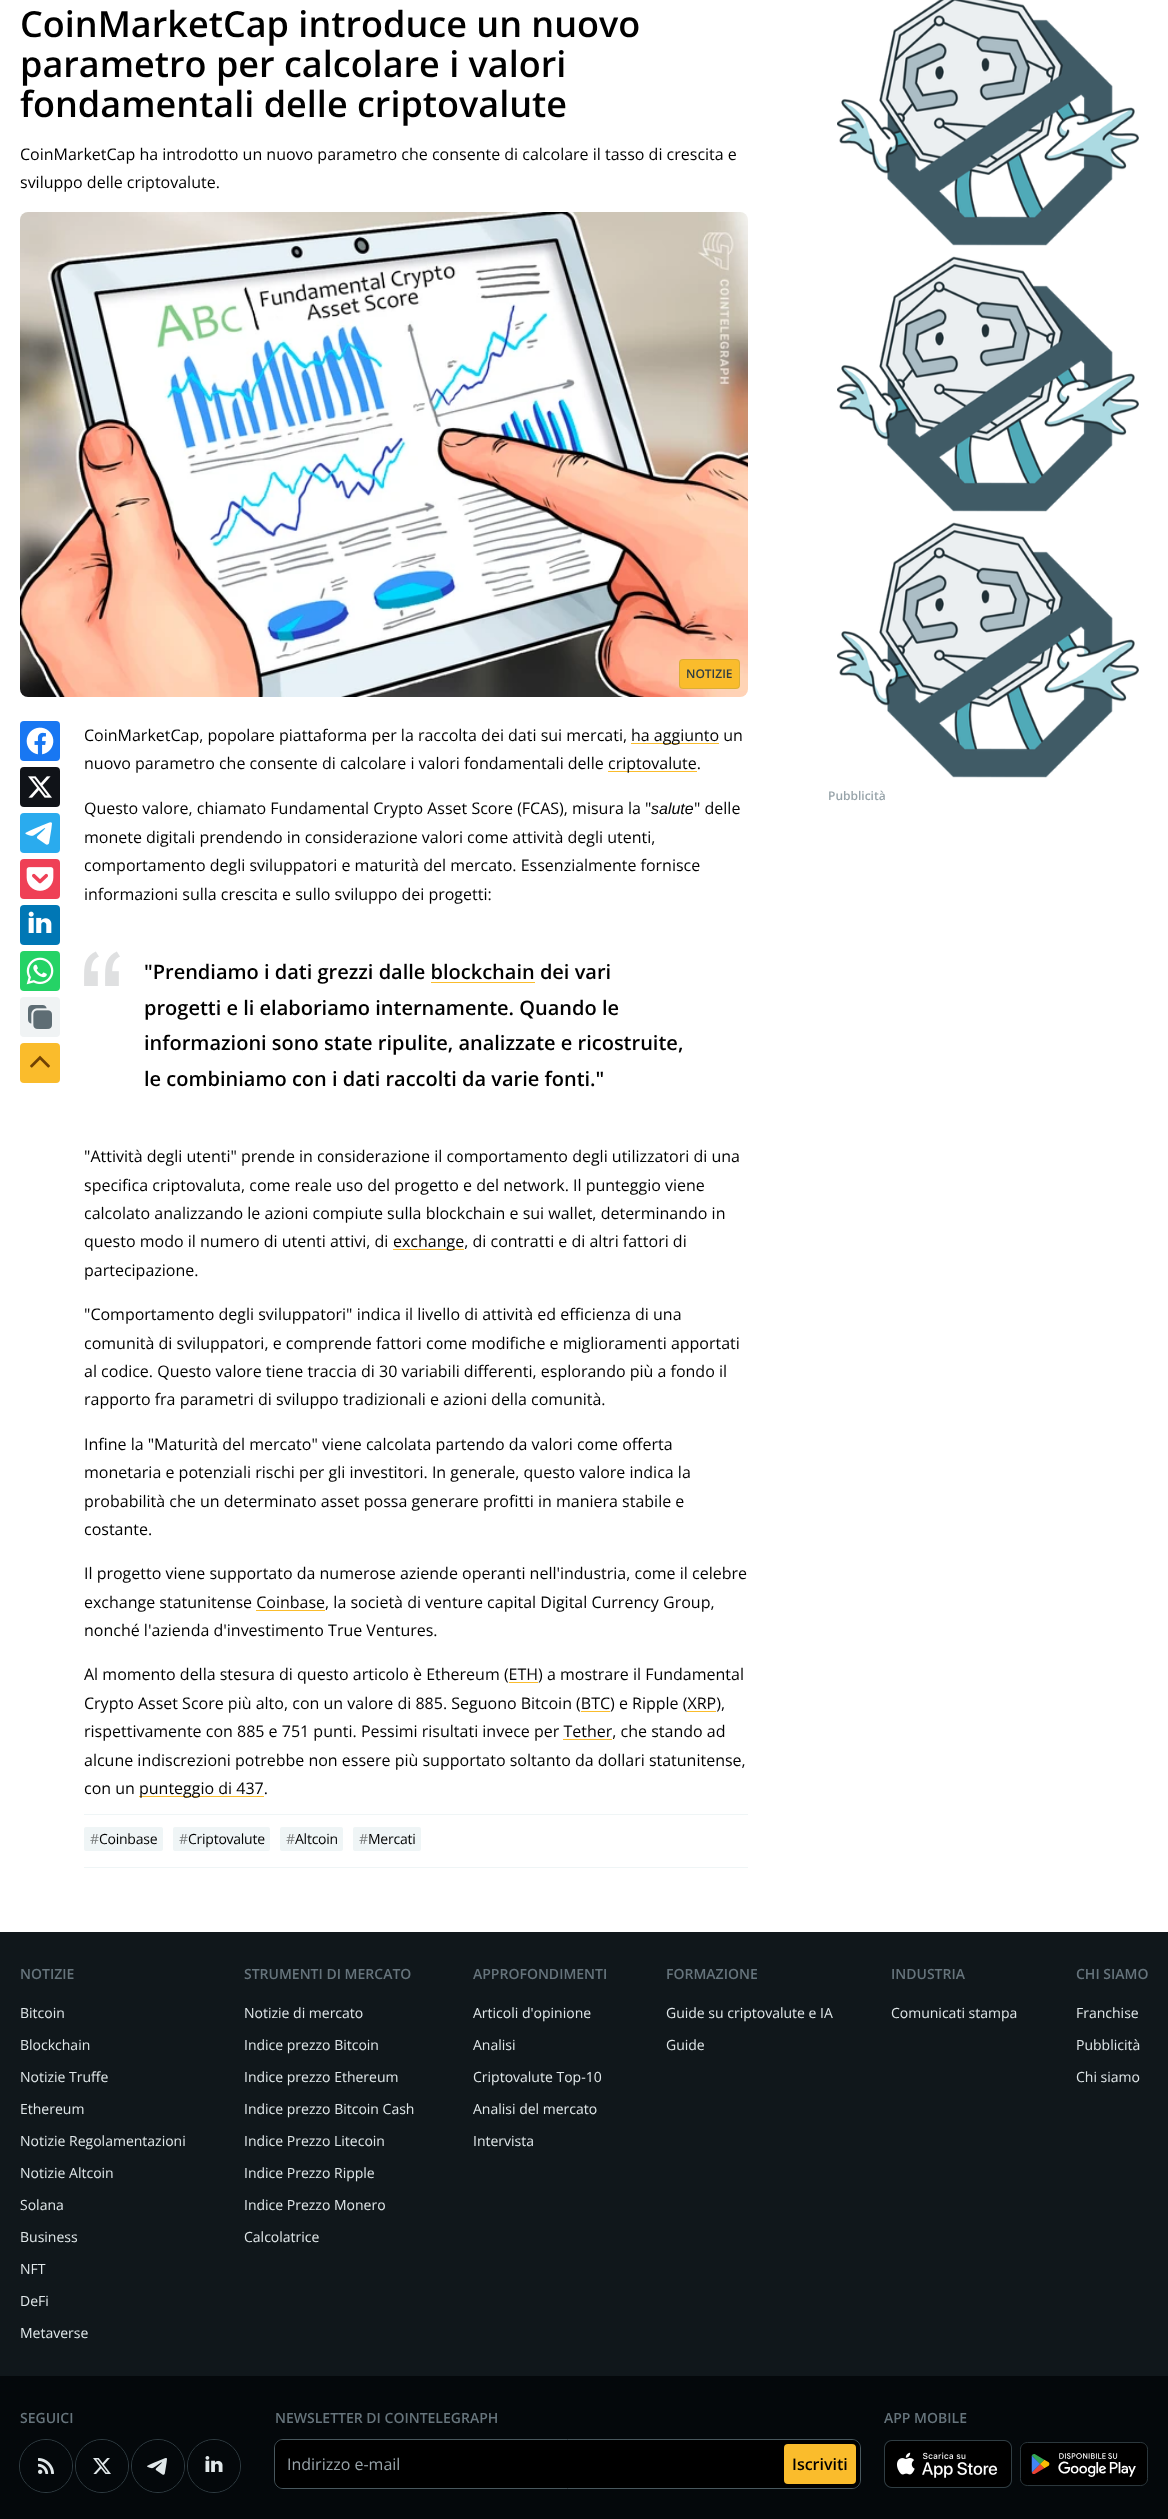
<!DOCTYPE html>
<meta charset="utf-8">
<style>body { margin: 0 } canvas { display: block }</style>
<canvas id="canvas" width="1168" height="2519"></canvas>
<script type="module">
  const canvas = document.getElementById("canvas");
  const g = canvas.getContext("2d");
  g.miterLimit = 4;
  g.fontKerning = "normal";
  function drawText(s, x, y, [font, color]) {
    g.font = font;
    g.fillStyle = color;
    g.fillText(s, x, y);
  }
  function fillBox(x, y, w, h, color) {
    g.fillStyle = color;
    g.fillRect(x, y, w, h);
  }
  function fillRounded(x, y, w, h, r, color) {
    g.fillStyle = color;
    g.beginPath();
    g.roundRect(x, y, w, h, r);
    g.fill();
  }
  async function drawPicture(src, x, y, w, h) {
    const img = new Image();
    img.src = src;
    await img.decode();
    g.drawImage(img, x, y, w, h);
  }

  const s1 = ["600 36px Open Sans", "#000000"];
  const s2 = ["16px Open Sans", "#000000"];
  const s3 = ["600 12px Open Sans", "#303D43"];
  const s4 = ["italic 16px Liberation Sans", "#000000"];
  const s5 = ["600 20px Open Sans", "#000000"];
  const s6 = ["14px Open Sans", "#787B7B"];
  const s7 = ["14px Open Sans", "#000000"];
  const s8 = ["600 12px Open Sans", "#98A4AA"];
  const s9 = ["600 14px Open Sans", "#66747C"];
  const s10 = ["14px Open Sans", "#E1E8EA"];
  const s11 = ["16px Open Sans", "#98A4AA"];
  const s12 = ["600 16px Open Sans", "#000000"];

  fillBox(0, 0, 1168, 2519, "#FFFFFF");
  drawText("CoinMarketCap introduce un nuovo", 20, 37, s1);
  drawText("parametro per calcolare i valori", 20, 77, s1);
  drawText("fondamentali delle criptovalute", 20, 117, s1);
  drawText("CoinMarketCap ha introdotto un nuovo parametro che consente di calcolare il tasso di crescita e", 20, 160, s2);
  drawText("sviluppo delle criptovalute.", 20, 188, s2);
  await drawPicture("pic1.png", 20, 212, 728, 485);
  fillRounded(679, 659, 61, 30, 4, "#FABC2C");
  g.beginPath();
  g.roundRect(679.5, 659.5, 60, 29, 3.5);
  g.strokeStyle = "rgba(49, 97, 111, 0.15)";
  g.stroke();
  drawText("NOTIZIE", 686, 678, s3);
  fillRounded(20, 721, 40, 40, 4, "#1877F2");
  await drawPicture("pic2.png", 26, 727, 28, 28);
  fillRounded(20, 767, 40, 40, 4, "#101318");
  await drawPicture("pic3.png", 28, 776, 24, 22);
  fillRounded(20, 813, 40, 40, 4, "#2AABEE");
  await drawPicture("pic4.png", 25, 822, 27, 23);
  fillRounded(20, 859, 40, 40, 4, "#EF4056");
  await drawPicture("pic5.png", 26, 867, 28, 24);
  fillRounded(20, 905, 40, 40, 4, "#0077B5");
  await drawPicture("pic6.png", 28, 911, 24, 22);
  fillRounded(20, 951, 40, 40, 4, "#25D366");
  await drawPicture("pic7.png", 26, 957, 28, 28);
  fillRounded(20, 997, 40, 40, 4, "#F0F3F4");
  await drawPicture("pic8.png", 28, 1005, 24, 24);
  fillRounded(20, 1043, 40, 40, 4, "#FABC2C");
  await drawPicture("pic9.png", 30, 1055, 20, 13);
  drawText("CoinMarketCap, popolare piattaforma per la raccolta dei dati sui mercati,", 84, 741, s2);
  fillBox(631, 743, 88, 1, "#FABC2C");
  drawText("ha aggiunto un", 631, 741, s2);
  drawText("nuovo parametro che consente di calcolare i valori fondamentali delle", 84, 769, s2);
  fillBox(608, 771, 89, 1, "#FABC2C");
  drawText("criptovalute.", 608, 769, s2);
  drawText("Questo valore, chiamato Fundamental Crypto Asset Score (FCAS), misura la \"", 84, 814, s2);
  drawText("salute", 651, 814, s4);
  drawText("\" delle", 694, 814, s2);
  drawText("monete digitali prendendo in considerazione valori come attività degli utenti,", 84, 843, s2);
  drawText("comportamento degli sviluppatori e maturità del mercato. Essenzialmente fornisce", 84, 871, s2);
  drawText("informazioni sulla crescita e sullo sviluppo dei progetti:", 84, 900, s2);
  await drawPicture("pic10.png", 84, 951, 36, 35);
  drawText("\"Prendiamo i dati grezzi dalle blockchain dei vari", 144, 979, s5);
  fillBox(431, 982, 104, 1, "#FABC2C");
  drawText("progetti e li elaboriamo internamente. Quando le", 144, 1015, s5);
  drawText("informazioni sono state ripulite, analizzate e ricostruite,", 144, 1050, s5);
  drawText("le combiniamo con i dati raccolti da varie fonti.\"", 144, 1086, s5);
  drawText("\"Attività degli utenti\" prende in considerazione il comportamento degli utilizzatori di una", 84, 1162, s2);
  drawText("specifica criptovaluta, come reale uso del progetto e del network. Il punteggio viene", 84, 1191, s2);
  drawText("calcolato analizzando le azioni compiute sulla blockchain e sui wallet, determinando in", 84, 1219, s2);
  drawText("questo modo il numero di utenti attivi, di", 84, 1247, s2);
  fillBox(393, 1249, 71, 1, "#FABC2C");
  drawText("exchange, di contratti e di altri fattori di", 393, 1247, s2);
  drawText("partecipazione.", 84, 1276, s2);
  drawText("\"Comportamento degli sviluppatori\" indica il livello di attività ed efficienza di una", 84, 1320, s2);
  drawText("comunità di sviluppatori, e comprende fattori come modifiche e miglioramenti apportati", 84, 1349, s2);
  drawText("al codice. Questo valore tiene traccia di 30 variabili differenti, esplorando più a fondo il", 84, 1377, s2);
  drawText("rapporto fra parametri di sviluppo tradizionali e azioni della comunità.", 84, 1405, s2);
  drawText("Infine la \"Maturità del mercato\" viene calcolata partendo da valori come offerta", 84, 1450, s2);
  drawText("monetaria e potenziali rischi per gli investitori. In generale, questo valore indica la", 84, 1478, s2);
  drawText("probabilità che un determinato asset possa generare profitti in maniera stabile e", 84, 1507, s2);
  drawText("costante.", 84, 1535, s2);
  drawText("Il progetto viene supportato da numerose aziende operanti nell'industria, come il celebre", 84, 1579, s2);
  drawText("exchange statunitense Coinbase, la società di venture capital Digital Currency Group,", 84, 1608, s2);
  fillBox(256, 1610, 69, 1, "#FABC2C");
  drawText("nonché l'azienda d'investimento True Ventures.", 84, 1636, s2);
  drawText("Al momento della stesura di questo articolo è Ethereum (ETH) a mostrare il Fundamental", 84, 1680, s2);
  fillBox(509, 1682, 29, 1, "#FABC2C");
  drawText("Crypto Asset Score più alto, con un valore di 885. Seguono Bitcoin (BTC) e Ripple (XRP),", 84, 1709, s2);
  fillBox(581, 1711, 29, 1, "#FABC2C");
  fillBox(687, 1711, 29, 1, "#FABC2C");
  drawText("rispettivamente con 885 e 751 punti. Pessimi risultati invece per Tether, che stando ad", 84, 1737, s2);
  fillBox(563, 1739, 49, 1, "#FABC2C");
  drawText("alcune indiscrezioni potrebbe non essere più supportato soltanto da dollari statunitense,", 84, 1766, s2);
  drawText("con un", 84, 1794, s2);
  fillBox(139, 1796, 125, 1, "#FABC2C");
  drawText("punteggio di 437.", 139, 1794, s2);
  fillBox(84, 1814, 664, 1, "#EFF5F6");
  fillRounded(84, 1827, 79, 24, 2, "#EFF5F6");
  g.letterSpacing = "-0.25px";
  drawText("#", 90, 1844, s6);
  drawText("Coinbase", 99, 1844, s7);
  fillRounded(173, 1827, 97, 24, 2, "#EFF5F6");
  drawText("#", 179, 1844, s6);
  drawText("Criptovalute", 188, 1844, s7);
  fillRounded(280, 1827, 63, 24, 2, "#EFF5F6");
  drawText("#", 286, 1844, s6);
  drawText("Altcoin", 295, 1844, s7);
  fillRounded(353, 1827, 68, 24, 2, "#EFF5F6");
  drawText("#", 359, 1844, s6);
  drawText("Mercati", 368, 1844, s7);
  fillBox(84, 1867, 664, 1, "#EFF5F6");
  await drawPicture("pic11.png", 837, 0, 302, 246);
  await drawPicture("pic12.png", 837, 256, 302, 256);
  await drawPicture("pic12.png", 837, 522, 302, 256);
  g.letterSpacing = "0px";
  drawText("Pubblicità", 828, 800, s8);
  fillBox(0, 1932, 1168, 444, "#10171B");
  drawText("NOTIZIE", 20, 1979, s9);
  drawText("Bitcoin", 20, 2018, s10);
  drawText("Blockchain", 20, 2050, s10);
  drawText("Notizie Truffe", 20, 2082, s10);
  drawText("Ethereum", 20, 2114, s10);
  drawText("Notizie Regolamentazioni", 20, 2146, s10);
  drawText("Notizie Altcoin", 20, 2178, s10);
  drawText("Solana", 20, 2210, s10);
  drawText("Business", 20, 2242, s10);
  drawText("NFT", 20, 2274, s10);
  drawText("DeFi", 20, 2306, s10);
  drawText("Metaverse", 20, 2338, s10);
  drawText("STRUMENTI DI MERCATO", 244, 1979, s9);
  drawText("Notizie di mercato", 244, 2018, s10);
  drawText("Indice prezzo Bitcoin", 244, 2050, s10);
  drawText("Indice prezzo Ethereum", 244, 2082, s10);
  drawText("Indice prezzo Bitcoin Cash", 244, 2114, s10);
  drawText("Indice Prezzo Litecoin", 244, 2146, s10);
  drawText("Indice Prezzo Ripple", 244, 2178, s10);
  drawText("Indice Prezzo Monero", 244, 2210, s10);
  drawText("Calcolatrice", 244, 2242, s10);
  drawText("APPROFONDIMENTI", 473, 1979, s9);
  drawText("Articoli d'opinione", 473, 2018, s10);
  drawText("Analisi", 473, 2050, s10);
  drawText("Criptovalute Top-10", 473, 2082, s10);
  drawText("Analisi del mercato", 473, 2114, s10);
  drawText("Intervista", 473, 2146, s10);
  drawText("FORMAZIONE", 666, 1979, s9);
  drawText("Guide su criptovalute e IA", 666, 2018, s10);
  drawText("Guide", 666, 2050, s10);
  drawText("INDUSTRIA", 891, 1979, s9);
  drawText("Comunicati stampa", 891, 2018, s10);
  drawText("CHI SIAMO", 1076, 1979, s9);
  drawText("Franchise", 1076, 2018, s10);
  drawText("Pubblicità", 1076, 2050, s10);
  drawText("Chi siamo", 1076, 2082, s10);
  fillBox(0, 2376, 1168, 143, "#04080B");
  drawText("SEGUICI", 20, 2423, s9);
  g.beginPath();
  g.arc(46, 2466, 26.5, 0, Math.PI * 2);
  g.strokeStyle = "#303D43";
  g.stroke();
  g.fillStyle = "#04080B";
  g.beginPath();
  g.arc(46, 2466, 26, 0, Math.PI * 2);
  g.fill();
  await drawPicture("pic13.png", 38, 2458, 16, 16);
  g.beginPath();
  g.arc(102, 2466, 26.5, 0, Math.PI * 2);
  g.stroke();
  g.beginPath();
  g.arc(102, 2466, 26, 0, Math.PI * 2);
  g.fill();
  await drawPicture("pic14.png", 93, 2458, 18, 16);
  g.beginPath();
  g.arc(158, 2466, 26.5, 0, Math.PI * 2);
  g.stroke();
  g.beginPath();
  g.arc(158, 2466, 26, 0, Math.PI * 2);
  g.fill();
  await drawPicture("pic15.png", 147, 2458, 20, 17);
  g.beginPath();
  g.arc(214, 2466, 26.5, 0, Math.PI * 2);
  g.stroke();
  g.beginPath();
  g.arc(214, 2466, 26, 0, Math.PI * 2);
  g.fill();
  await drawPicture("pic16.png", 205, 2456, 18, 16);
  drawText("NEWSLETTER DI COINTELEGRAPH", 275, 2423, s9);
  g.beginPath();
  g.roundRect(274.5, 2439.5, 586, 49, 8.5);
  g.strokeStyle = "#48575D";
  g.stroke();
  fillRounded(275, 2440, 585, 48, 8, "#000000");
  drawText("Indirizzo e-mail", 287, 2470, s11);
  fillRounded(784, 2444, 72, 40, 4, "#FABC2C");
  drawText("Iscriviti", 792, 2470, s12);
  drawText("APP MOBILE", 884, 2423, s9);
  await drawPicture("pic17.png", 884, 2440, 128, 48);
  await drawPicture("pic18.png", 1020, 2442, 128, 44);
</script>
